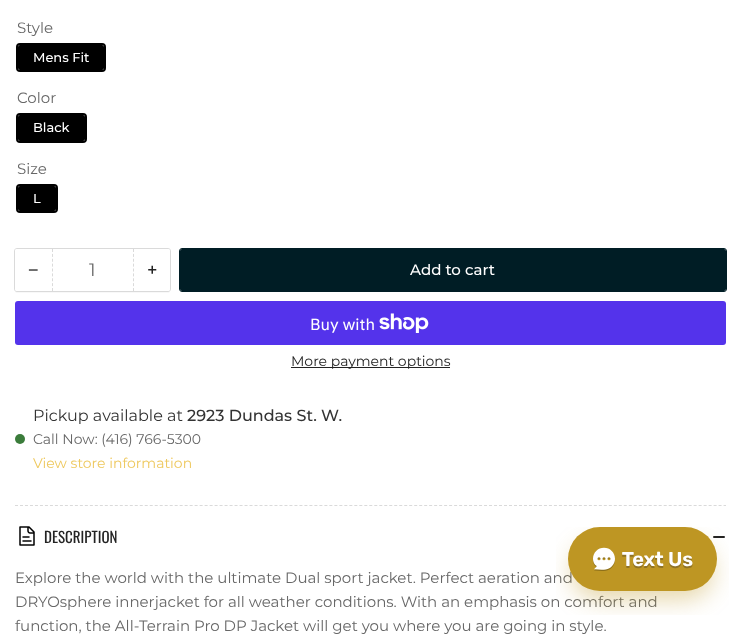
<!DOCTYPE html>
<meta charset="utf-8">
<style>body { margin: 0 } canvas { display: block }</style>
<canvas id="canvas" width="741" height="642"></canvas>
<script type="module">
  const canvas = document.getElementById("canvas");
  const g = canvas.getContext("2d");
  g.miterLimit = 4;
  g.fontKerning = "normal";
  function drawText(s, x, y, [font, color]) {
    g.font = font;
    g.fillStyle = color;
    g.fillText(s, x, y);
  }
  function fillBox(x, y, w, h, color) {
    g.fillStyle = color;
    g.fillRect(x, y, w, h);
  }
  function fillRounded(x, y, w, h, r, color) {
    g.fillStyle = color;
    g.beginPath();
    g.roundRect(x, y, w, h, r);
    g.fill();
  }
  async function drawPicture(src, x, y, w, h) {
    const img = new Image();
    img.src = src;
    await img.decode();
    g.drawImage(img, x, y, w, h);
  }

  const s1 = ["15px Montserrat", "#676767"];
  const s2 = ["500 13px Montserrat", "#FFFFFF"];
  const s3 = ["18px Liberation Sans", "#232323"];
  const s4 = ["18px Montserrat", "#676767"];
  const s5 = ["500 18px Montserrat", "#232323"];
  const s6 = ["500 15px Montserrat", "#FFFFFF"];
  const s7 = ["16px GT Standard", "#FFFFFF"];
  const s8 = ["14px Montserrat", "#232323"];
  const s9 = ["16px Montserrat", "#333333"];
  const s10 = ["500 16px Montserrat", "#333333"];
  const s11 = ["14px Montserrat", "#676767"];
  const s12 = ["14px Montserrat", "#EEC85D"];
  const s13 = ["15px Oswald", "#232323"];

  fillBox(0, 0, 741, 642, "#FFFFFF");
  drawText("Style", 17, 33, s1);
  g.beginPath();
  g.roundRect(17, 44, 88, 27, 3);
  g.strokeStyle = "#000000";
  g.lineWidth = 2;
  g.stroke();
  fillRounded(18, 45, 86, 25, 2, "#000000");
  drawText("Mens Fit", 33, 62, s2);
  drawText("Color", 17, 103, s1);
  g.beginPath();
  g.roundRect(17, 114, 69, 28, 3);
  g.stroke();
  fillRounded(18, 115, 67, 26, 2, "#000000");
  drawText("Black", 33, 132, s2);
  drawText("Size", 17, 174, s1);
  g.beginPath();
  g.roundRect(17, 185, 40, 27, 3);
  g.stroke();
  fillRounded(18, 186, 38, 25, 2, "#000000");
  drawText("L", 33, 203, s2);
  g.fillStyle = "#F8F8F8";
  g.beginPath();
  g.moveTo(15, 289);
  g.bezierCurveTo(15, 291, 15, 293, 17, 293);
  g.lineTo(169, 293);
  g.bezierCurveTo(170, 292, 170, 290, 170, 289);
  g.bezierCurveTo(170, 290, 169, 291, 168, 291);
  g.lineTo(17, 291);
  g.bezierCurveTo(16, 291, 15, 290, 15, 289);
  g.closePath();
  g.fill();
  g.beginPath();
  g.roundRect(14.5, 248.5, 156, 43, 2.5);
  g.strokeStyle = "#DADADA";
  g.lineWidth = 1;
  g.stroke();
  fillRounded(15, 249, 155, 42, 2, "#FFFFFF");
  drawText("−", 28, 276, s3);
  g.beginPath();
  g.moveTo(133.5, 249);
  g.lineTo(133.5, 291);
  g.setLineDash([3, 1.88]);
  g.stroke();
  g.beginPath();
  g.moveTo(52.5, 249);
  g.lineTo(52.5, 291);
  g.stroke();
  drawText("1", 89, 276, s4);
  drawText("+", 147, 276, s5);
  g.beginPath();
  g.roundRect(179.5, 248.5, 547, 43, 2.5);
  g.strokeStyle = "#001D25";
  g.setLineDash([]);
  g.stroke();
  fillRounded(180, 249, 546, 42, 2, "#001D25");
  drawText("Add to cart", 410, 275, s6);
  fillRounded(15, 301, 711, 44, 3, "#5433EB");
  drawText("Buy with", 310, 330, s7);
  await drawPicture("pic1.png", 379, 313, 50, 20);
  fillBox(291, 367, 159, 1, "#232323");
  drawText("More payment options", 291, 366, s8);
  g.fillStyle = "#3B7C3B";
  g.beginPath();
  g.arc(20, 439, 5, 0, Math.PI * 2);
  g.fill();
  drawText("Pickup available at", 33, 421, s9);
  drawText("2923 Dundas St. W.", 187, 421, s10);
  drawText("Call Now: (416) 766-5300", 33, 444, s11);
  drawText("View store information", 33, 468, s12);
  g.beginPath();
  g.moveTo(15, 505.5);
  g.lineTo(726, 505.5);
  g.strokeStyle = "#DADADA";
  g.setLineDash([3, 1.99]);
  g.stroke();
  await drawPicture("pic2.png", 19, 526, 16, 20);
  drawText("DESCRIPTION", 44, 543, s13);
  fillRounded(713, 536, 7, 2, 1, "#232323");
  fillRounded(717, 536, 8, 2, 1, "#232323");
  drawText("Explore the world with the ultimate Dual sport jacket. Perfect aeration and", 15, 583, s1);
  drawText("DRYOsphere innerjacket for all weather conditions. With an emphasis on comfort and", 15, 607, s1);
  drawText("function, the All-Terrain Pro DP Jacket will get you where you are going in style.", 15, 631, s1);
  await drawPicture("pic3.png", 556, 527, 173, 88);
</script>
